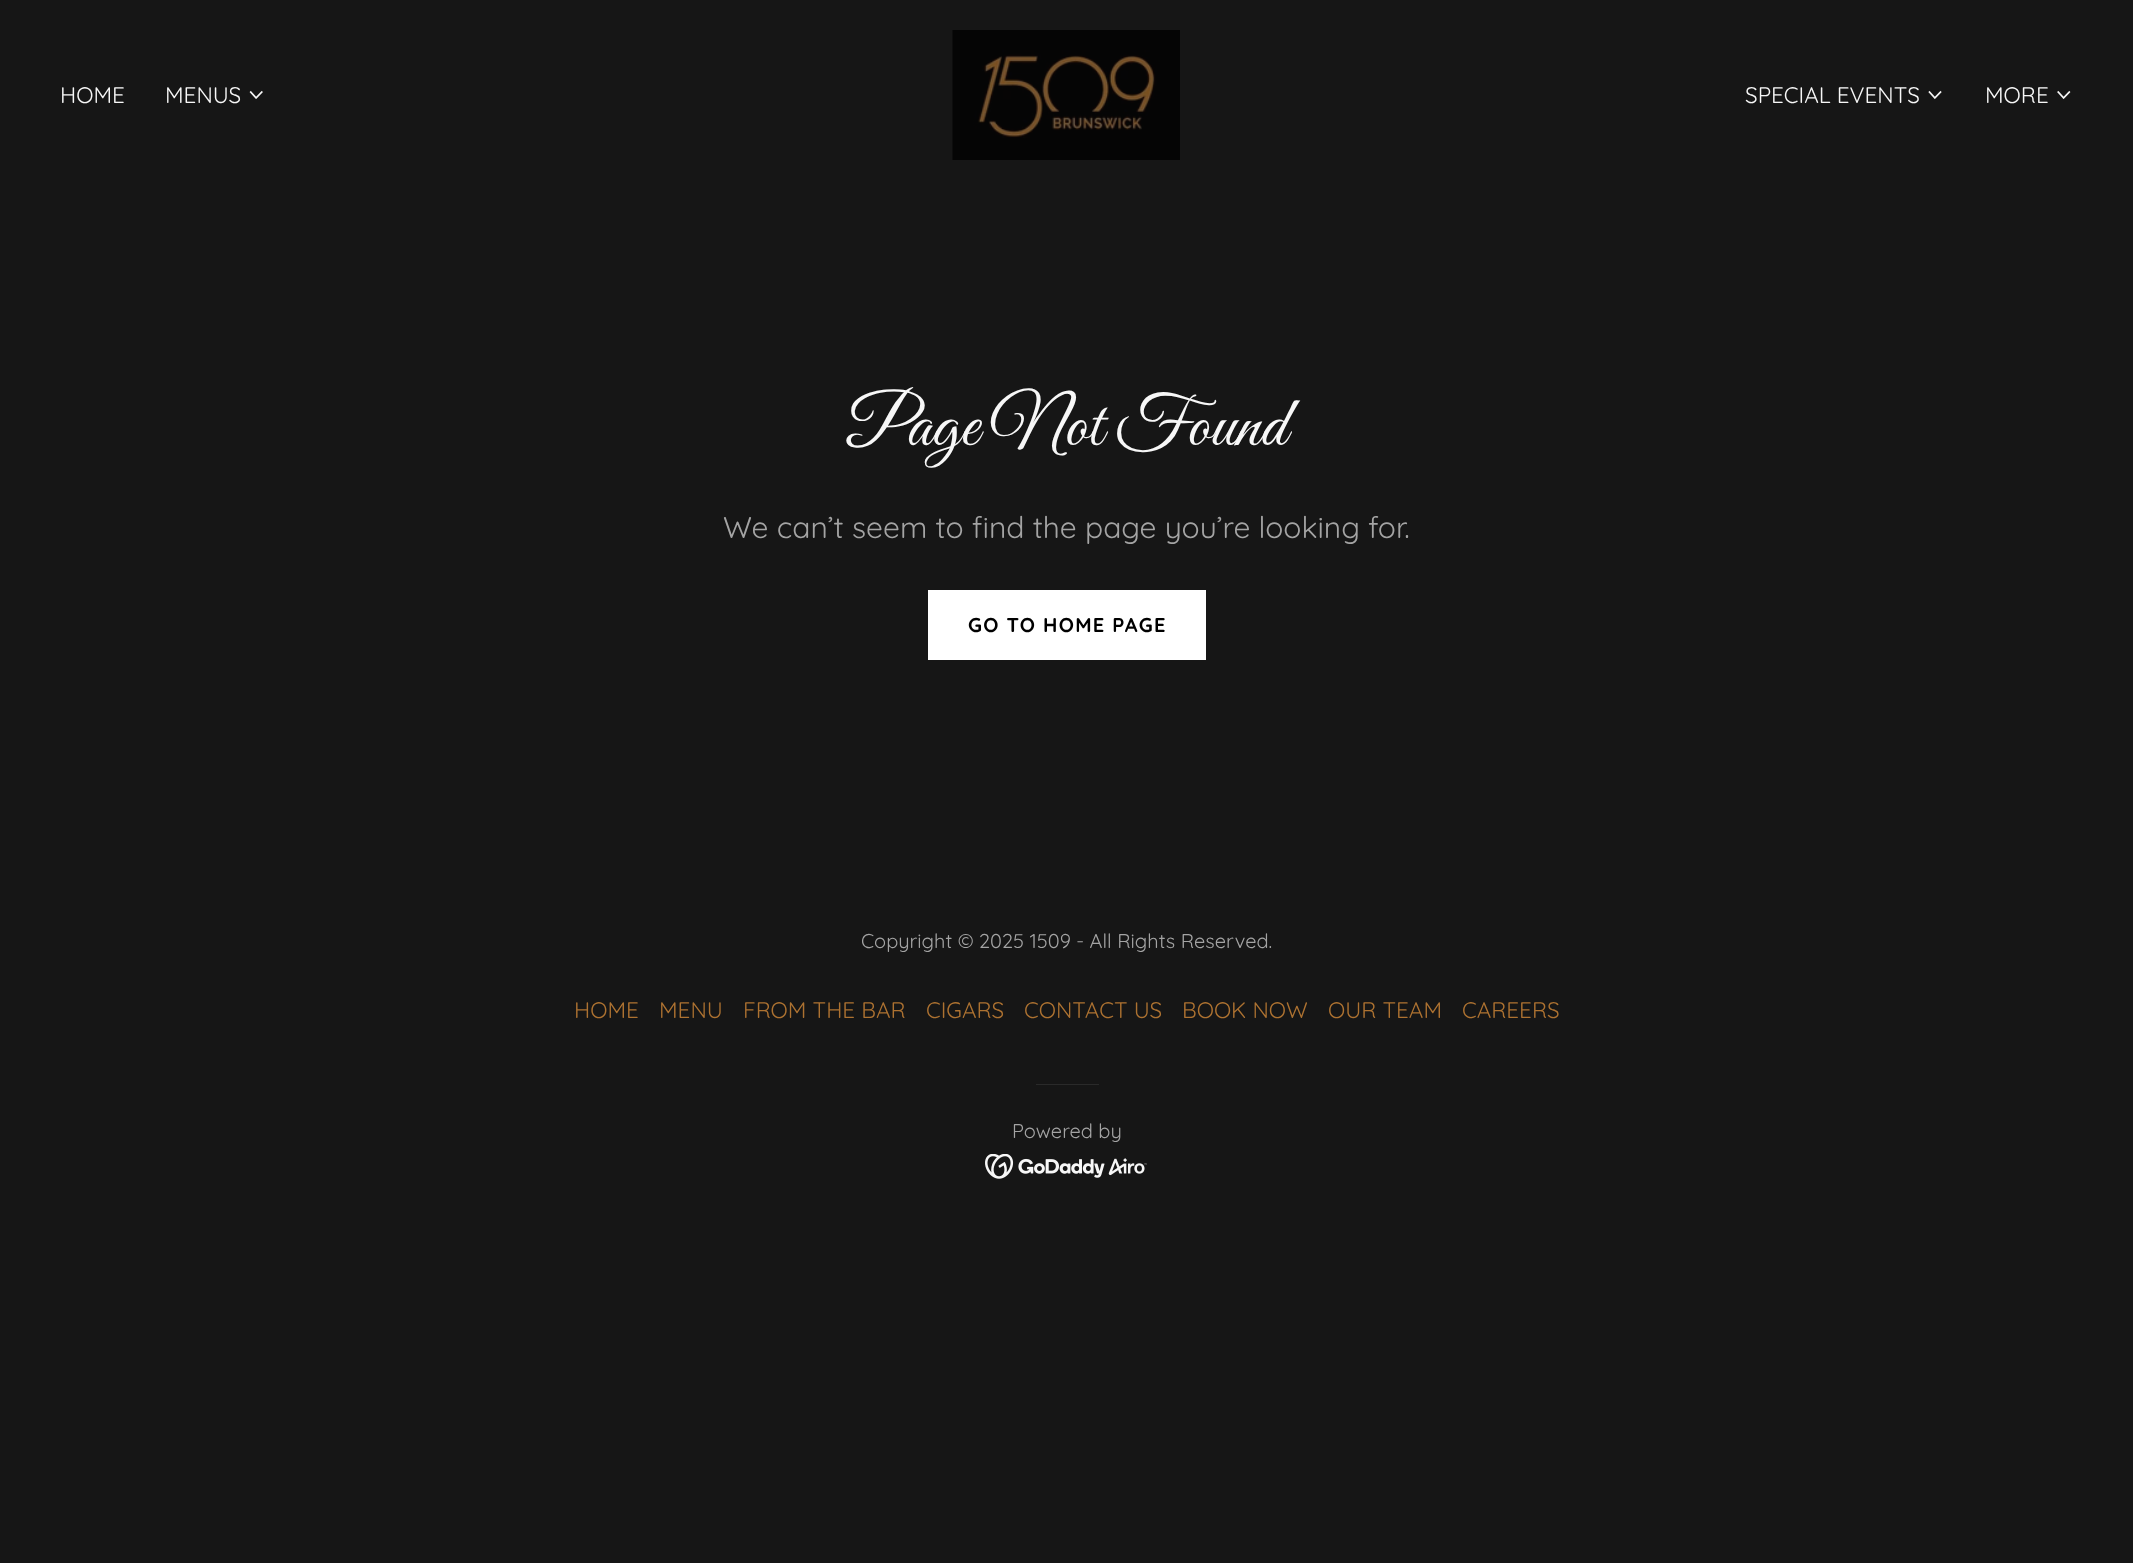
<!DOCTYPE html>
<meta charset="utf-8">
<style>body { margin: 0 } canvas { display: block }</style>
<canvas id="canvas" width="2133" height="1563"></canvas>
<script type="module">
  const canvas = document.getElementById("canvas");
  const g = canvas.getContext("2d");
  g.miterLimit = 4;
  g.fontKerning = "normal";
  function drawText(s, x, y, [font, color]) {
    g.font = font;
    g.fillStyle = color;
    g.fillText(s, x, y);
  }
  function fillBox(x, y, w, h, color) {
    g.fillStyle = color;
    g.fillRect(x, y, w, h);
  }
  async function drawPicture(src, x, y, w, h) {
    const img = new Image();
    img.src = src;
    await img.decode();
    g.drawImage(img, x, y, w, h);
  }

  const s1 = ["22.5px Quicksand", "#F7F7F7"];
  const s2 = ["71.25px Great Vibes", "#F7F7F7"];
  const s3 = ["30px Quicksand", "#A4A4A4"];
  const s4 = ["bold 20px Quicksand", "#000000"];
  const s5 = ["20px Quicksand", "#A4A4A4"];
  const s6 = ["22.5px Quicksand", "#AD7231"];

  fillBox(0, 0, 2133, 1563, "#161616");
  drawText("HOME", 60, 103, s1);
  drawText("MENUS", 165, 103, s1);
  await drawPicture("pic1.png", 249, 90, 14, 9);
  await drawPicture("pic2.png", 952, 30, 228, 130);
  drawText("SPECIAL EVENTS", 1745, 103, s1);
  await drawPicture("pic3.png", 1928, 90, 14, 10);
  drawText("MORE", 1985, 103, s1);
  await drawPicture("pic4.png", 2057, 90, 14, 10);
  drawText("Page Not Found", 846, 445, s2);
  drawText("We can’t seem to find the page you’re looking for.", 723, 538, s3);
  fillBox(928, 590, 278, 70, "#FFFFFF");
  g.letterSpacing = "1.25px";
  drawText("GO TO HOME PAGE", 968, 632, s4);
  g.letterSpacing = "0px";
  drawText("Copyright © 2025 1509 - All Rights Reserved.", 861, 948, s5);
  drawText("HOME", 574, 1018, s6);
  drawText("MENU", 659, 1018, s6);
  drawText("FROM THE BAR", 743, 1018, s6);
  drawText("CIGARS", 926, 1018, s6);
  drawText("CONTACT US", 1024, 1018, s6);
  drawText("BOOK NOW", 1182, 1018, s6);
  drawText("OUR TEAM", 1328, 1018, s6);
  drawText("CAREERS", 1462, 1018, s6);
  fillBox(1036, 1084, 63, 1, "#2A2A2A");
  drawText("Powered by", 1012, 1138, s5);
  await drawPicture("pic5.png", 985, 1154, 162, 25);
</script>
